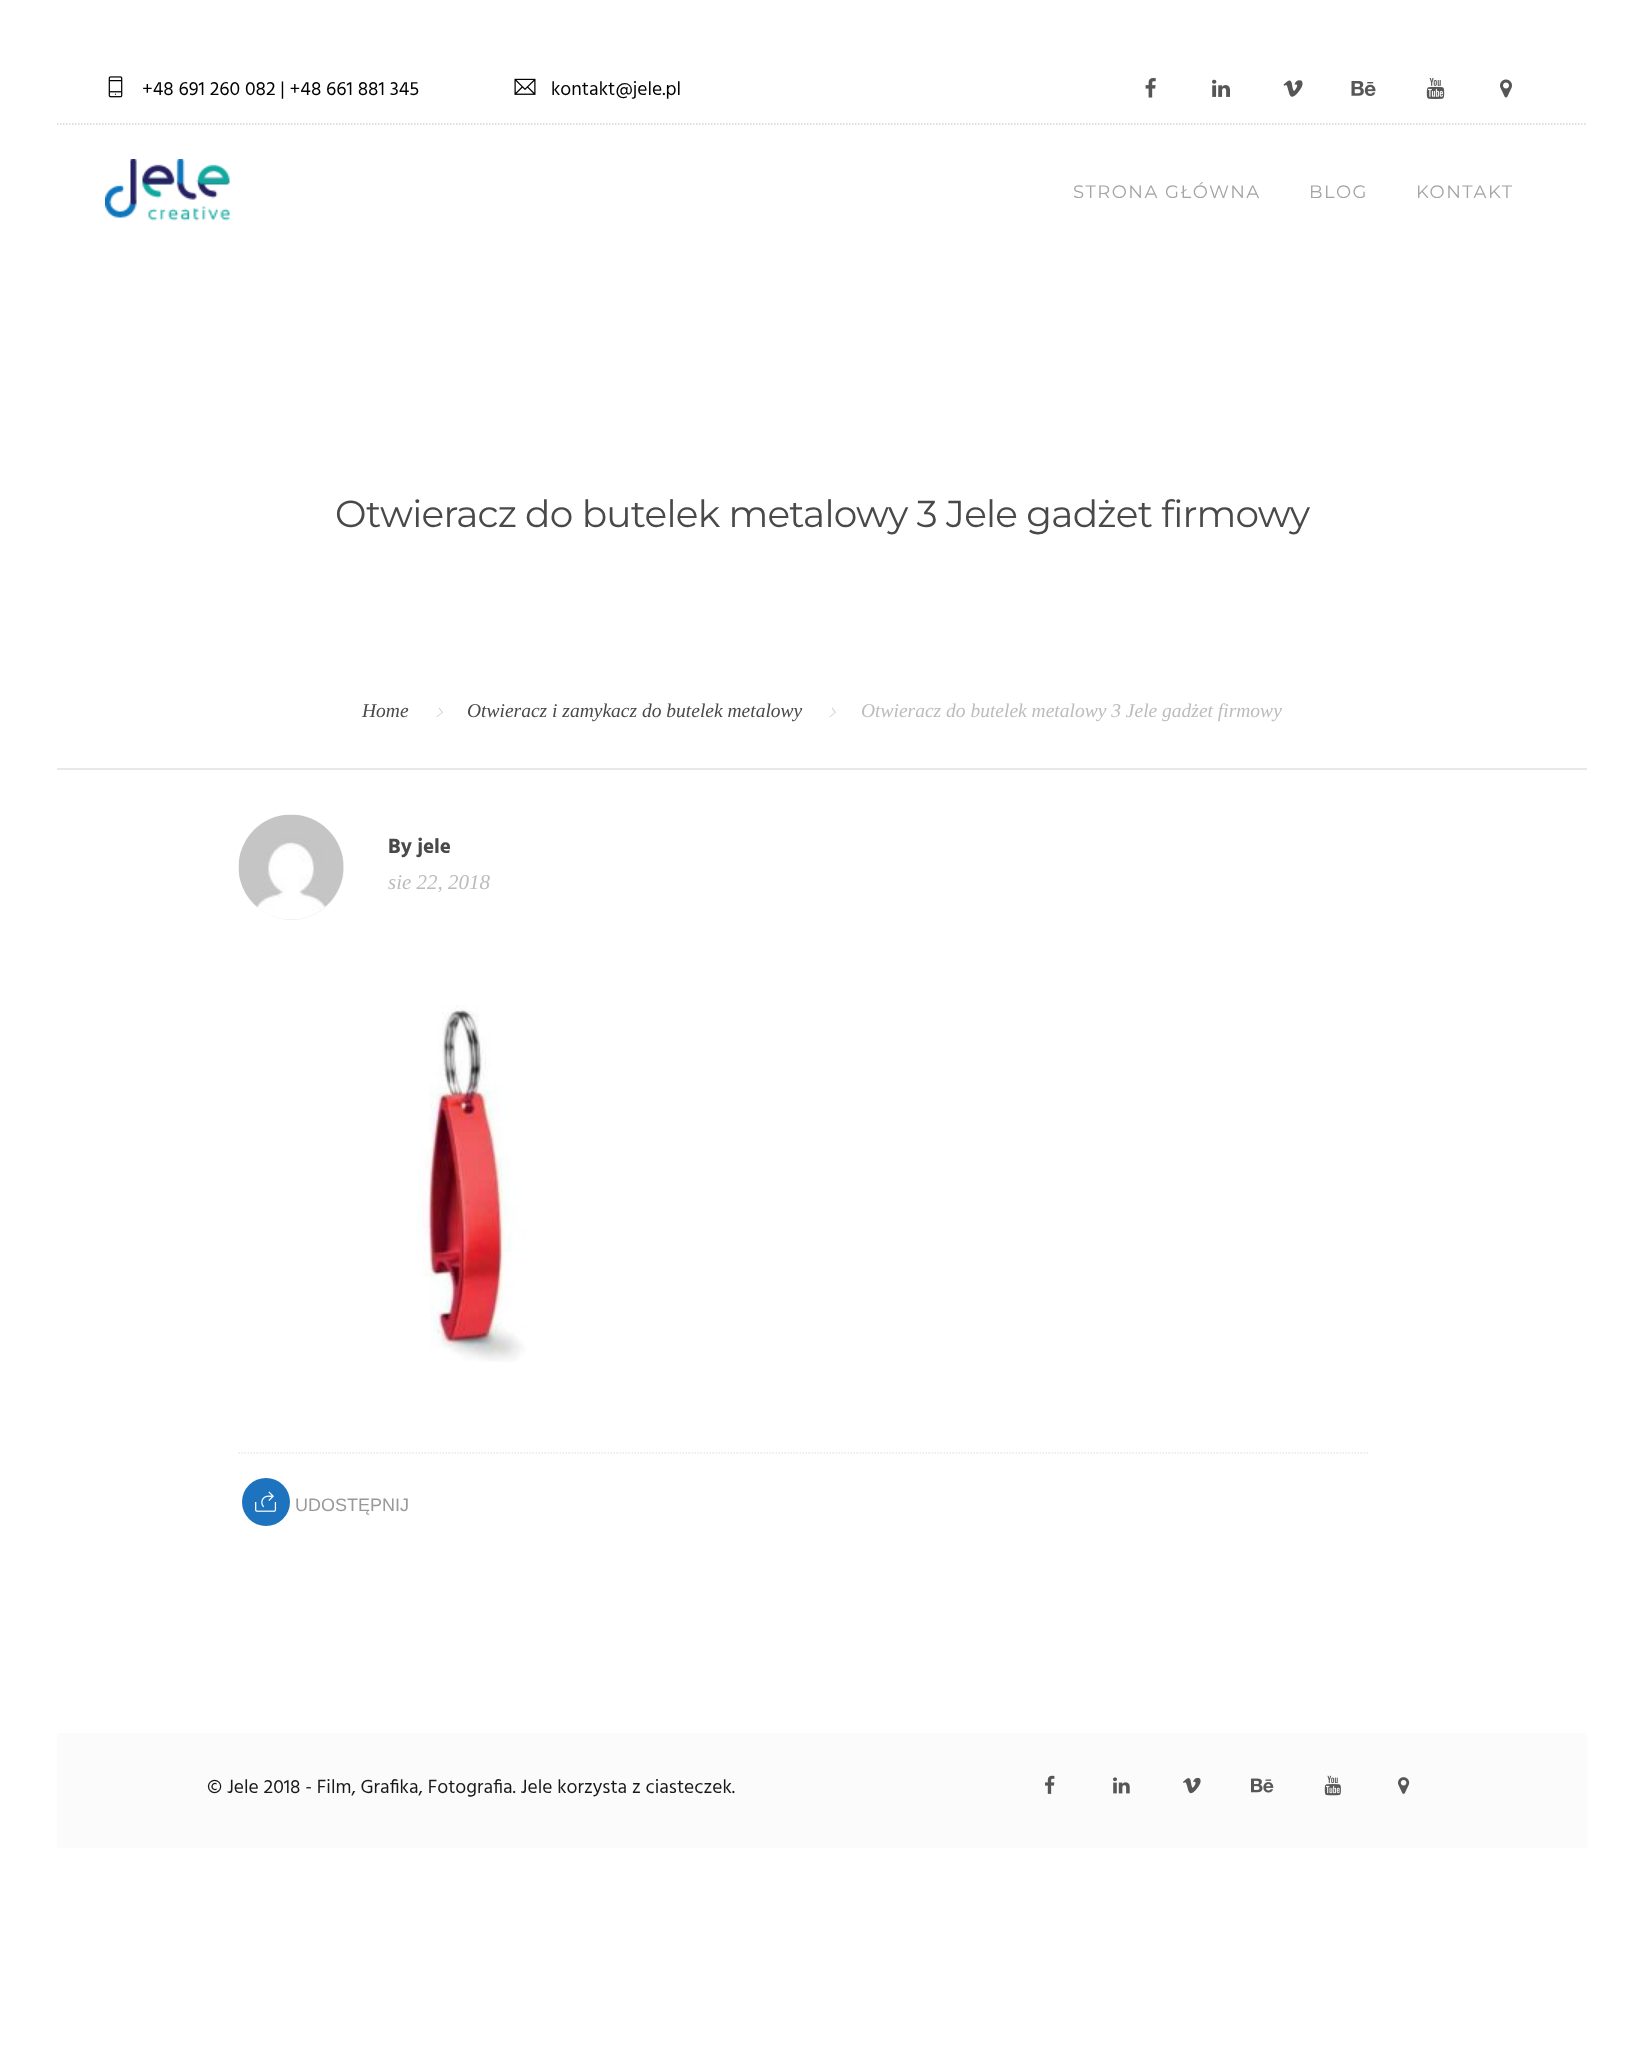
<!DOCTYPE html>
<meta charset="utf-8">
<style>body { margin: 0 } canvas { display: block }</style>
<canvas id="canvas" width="1644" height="2048"></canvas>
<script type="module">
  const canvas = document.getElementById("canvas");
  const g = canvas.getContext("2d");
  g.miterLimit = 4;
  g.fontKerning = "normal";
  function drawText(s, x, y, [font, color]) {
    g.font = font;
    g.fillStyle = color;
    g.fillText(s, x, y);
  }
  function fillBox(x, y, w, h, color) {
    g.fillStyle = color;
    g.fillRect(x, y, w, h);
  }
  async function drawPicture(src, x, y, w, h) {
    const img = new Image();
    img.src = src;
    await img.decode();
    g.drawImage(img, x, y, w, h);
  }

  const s1 = ["19.5px Hind", "#000000"];
  const s2 = ["18px Montserrat", "#A4A4A4"];
  const s3 = ["37.5px Montserrat", "#494949"];
  const s4 = ["italic 19.5px Liberation Serif", "#494949"];
  const s5 = ["italic 19.5px Liberation Serif", "#BCBCBC"];
  const s6 = ["bold 21px Hind", "#494949"];
  const s7 = ["italic 21px Liberation Serif", "#BCBCBC"];
  const s8 = ["18px Liberation Sans", "#999999"];
  const s9 = ["19.5px Hind", "#191919"];

  fillBox(0, 0, 1644, 2048, "#FFFFFF");
  g.beginPath();
  g.moveTo(57, 124);
  g.lineTo(1587, 124);
  g.strokeStyle = "#D4D4D5";
  g.lineWidth = 1.5;
  g.setLineDash([1.5, 1.5]);
  g.stroke();
  await drawPicture("pic1.png", 108, 76, 15, 22);
  drawText("+48 691 260 082 | +48 661 881 345", 142, 95, s1);
  await drawPicture("pic2.png", 514, 78, 22, 17);
  drawText("kontakt@jele.pl", 551, 95, s1);
  await drawPicture("pic3.png", 1145, 78, 11, 20);
  await drawPicture("pic4.png", 1212, 79, 18, 18);
  await drawPicture("pic5.png", 1283, 80, 20, 17);
  await drawPicture("pic6.png", 1351, 81, 25, 15);
  await drawPicture("pic7.png", 1426, 78, 19, 21);
  await drawPicture("pic8.png", 1500, 79, 12, 19);
  await drawPicture("pic9.png", 105, 159, 125, 62);
  g.letterSpacing = "1.5px";
  drawText("STRONA GŁÓWNA", 1073, 198, s2);
  drawText("BLOG", 1309, 198, s2);
  drawText("KONTAKT", 1416, 198, s2);
  fillBox(57, 768, 1530, 2, "#E8E8E8");
  g.letterSpacing = "-0.75px";
  drawText("Otwieracz do butelek metalowy 3 Jele gadżet firmowy", 335, 527, s3);
  g.letterSpacing = "0px";
  drawText("Home", 362, 717, s4);
  await drawPicture("pic10.png", 436, 707, 7, 10);
  drawText("Otwieracz i zamykacz do butelek metalowy", 467, 717, s4);
  await drawPicture("pic10.png", 829, 707, 7, 10);
  drawText("Otwieracz do butelek metalowy 3 Jele gadżet firmowy", 861, 717, s5);
  g.beginPath();
  g.moveTo(238.5, 1453);
  g.lineTo(1368, 1453);
  g.strokeStyle = "#E8E8E8";
  g.stroke();
  g.fillStyle = "#F0F0F0";
  g.beginPath();
  g.arc(291.5, 867.5, 52.5, 0, Math.PI * 2);
  g.fill();
  await drawPicture("pic11.png", 238, 814, 106, 105);
  drawText("By jele", 388, 853, s6);
  drawText("sie 22, 2018", 388, 889, s7);
  await drawPicture("pic12.png", 416, 1005, 110, 357);
  g.fillStyle = "#1E73BE";
  g.beginPath();
  g.arc(266, 1502, 24, 0, Math.PI * 2);
  g.fill();
  await drawPicture("pic13.png", 255, 1491, 22, 21);
  drawText("UDOSTĘPNIJ", 295, 1511, s8);
  fillBox(57, 1733, 1530, 115, "#FBFBFB");
  drawText("© Jele 2018 - Film, Grafika, Fotografia. Jele korzysta z ciasteczek.", 207, 1793, s9);
  await drawPicture("pic14.png", 1045, 1775, 10, 19);
  await drawPicture("pic15.png", 1113, 1777, 17, 17);
  await drawPicture("pic16.png", 1183, 1777, 18, 17);
  await drawPicture("pic17.png", 1251, 1778, 23, 15);
  await drawPicture("pic18.png", 1324, 1775, 17, 21);
  await drawPicture("pic19.png", 1398, 1777, 12, 17);
</script>
